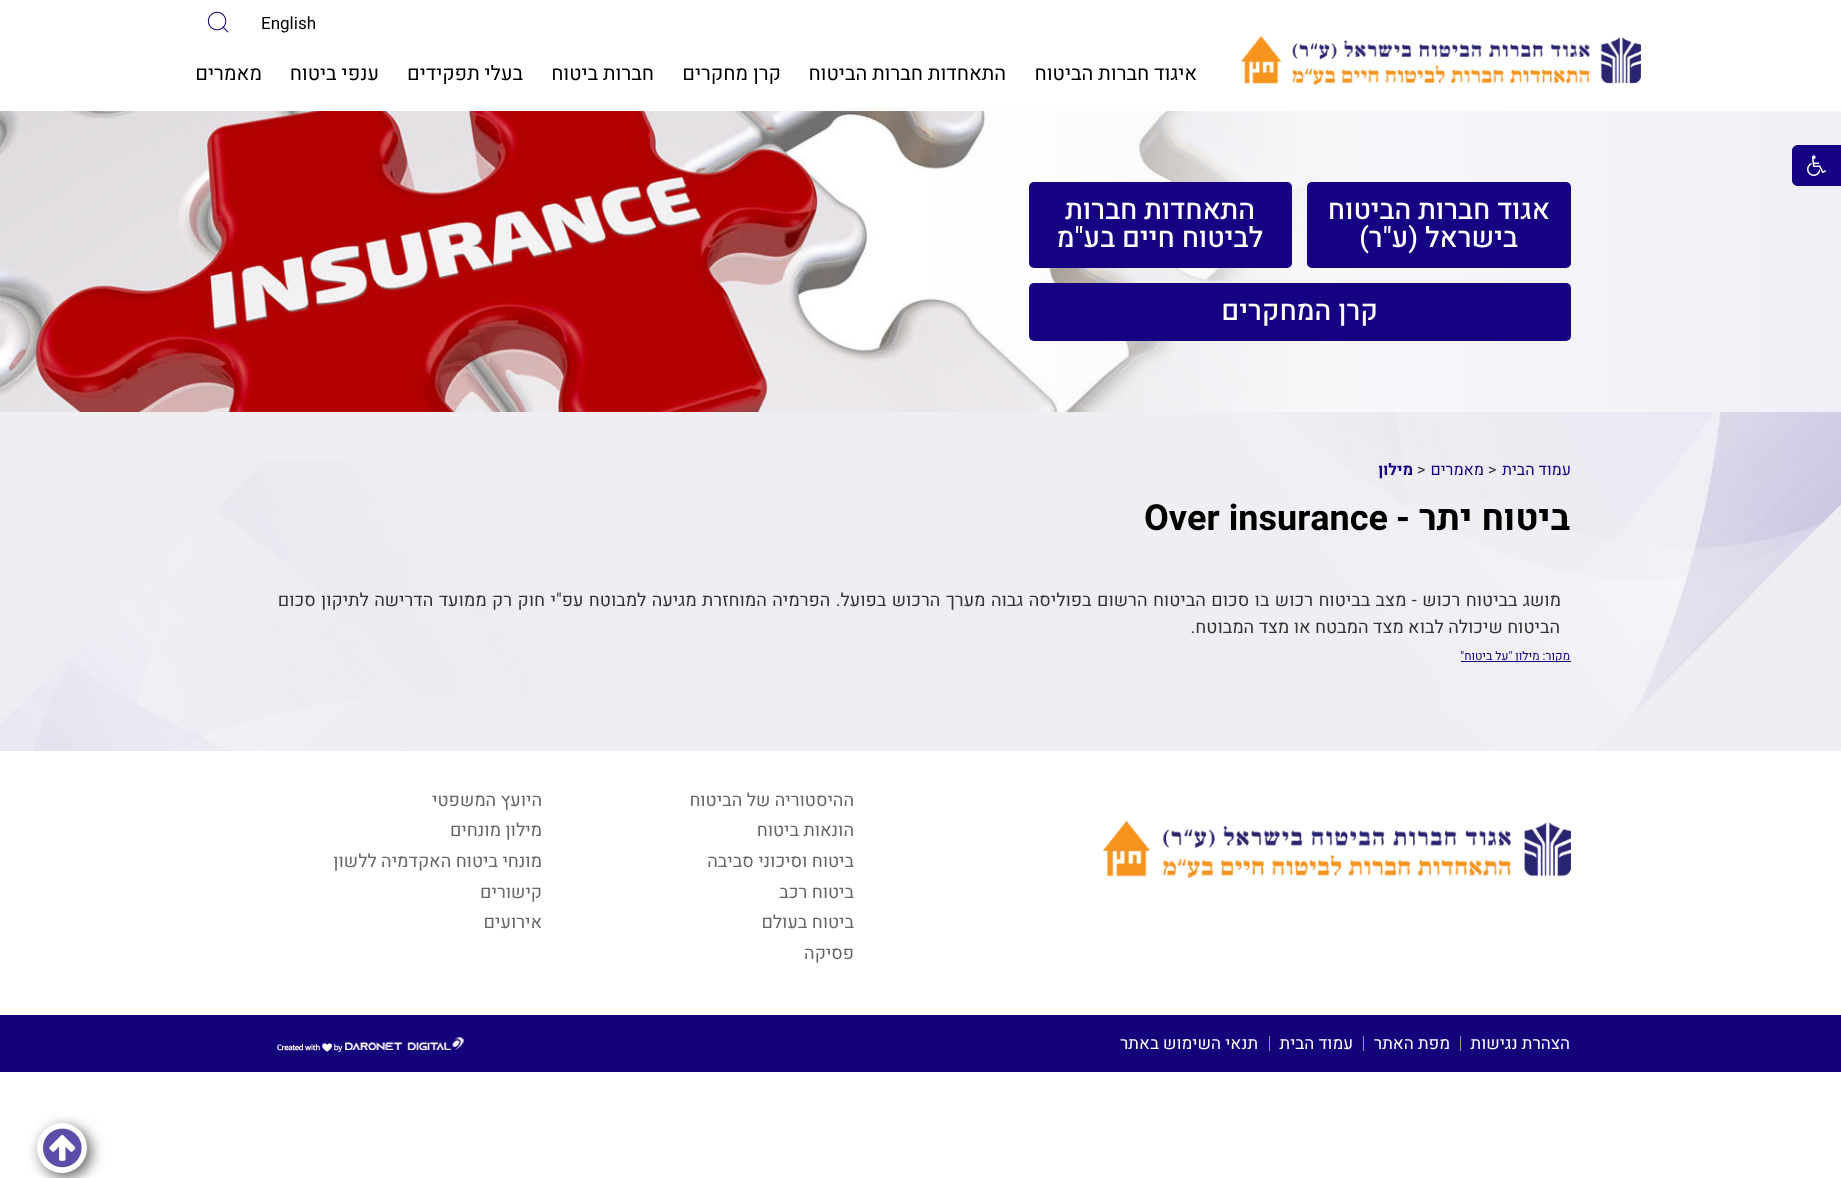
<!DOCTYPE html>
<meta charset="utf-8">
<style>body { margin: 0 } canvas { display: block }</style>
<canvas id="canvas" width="1841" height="1178"></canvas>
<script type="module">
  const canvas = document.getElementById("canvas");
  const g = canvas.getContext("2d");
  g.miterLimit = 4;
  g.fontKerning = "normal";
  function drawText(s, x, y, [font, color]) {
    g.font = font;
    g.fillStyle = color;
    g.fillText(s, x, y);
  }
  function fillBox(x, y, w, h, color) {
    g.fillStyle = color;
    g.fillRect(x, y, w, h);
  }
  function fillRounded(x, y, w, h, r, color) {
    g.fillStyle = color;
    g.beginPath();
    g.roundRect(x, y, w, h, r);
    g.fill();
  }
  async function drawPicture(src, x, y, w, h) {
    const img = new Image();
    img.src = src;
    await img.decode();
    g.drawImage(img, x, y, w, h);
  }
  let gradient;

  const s1 = ["17px Heebo", "#000000"];
  const s2 = ["20px Heebo", "#000000"];
  const s3 = ["500 28px Heebo", "#FFFFFF"];
  const s4 = ["16px Heebo", "#150182"];
  const s5 = ["16px Heebo", "#333333"];
  const s6 = ["bold 16px Heebo", "#150182"];
  const s7 = ["bold 36px Heebo", "#000000"];
  const s8 = ["18px Heebo", "#333333"];
  const s9 = ["12px Heebo", "#150182"];
  const s10 = ["18px Heebo", "#666666"];
  const s11 = ["17px Heebo", "#FFFFFF"];

  fillBox(0, 0, 1841, 1178, "#FFFFFF");
  await drawPicture("pic4.png", 0, 111, 1323, 301);
  gradient = g.createLinearGradient(921, 262, 1841, 262);
  gradient.addColorStop(0, "rgba(248, 248, 251, 0)");
  gradient.addColorStop(0.44, "#F8F8FB");
  gradient.addColorStop(1, "#F0EFF5");
  g.fillStyle = gradient;
  g.fillRect(930, 111, 911, 301);
  g.fillStyle = "#150182";
  g.beginPath();
  g.moveTo(1798, 145);
  g.lineTo(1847, 145);
  g.lineTo(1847, 186);
  g.lineTo(1798, 186);
  g.bezierCurveTo(1794.5, 186, 1792, 183.5, 1792, 180);
  g.lineTo(1792, 151);
  g.bezierCurveTo(1792, 147.5, 1794.5, 145, 1798, 145);
  g.closePath();
  g.fill();
  await drawPicture("pic1.png", 1807, 155, 19, 21);
  drawText("English", 261, 29, s1);
  await drawPicture("pic2.png", 207, 11, 22, 22);
  await drawPicture("pic3.png", 1240, 36, 401, 49);
  g.direction = "rtl";
  drawText("איגוד חברות הביטוח", 1197, 80, s2);
  drawText("התאחדות חברות הביטוח", 1006, 80, s2);
  drawText("קרן מחקרים", 781, 80, s2);
  drawText("חברות ביטוח", 654, 80, s2);
  drawText("בעלי תפקידים", 523, 80, s2);
  drawText("ענפי ביטוח", 379, 80, s2);
  drawText("מאמרים", 262, 80, s2);
  fillRounded(1307, 182, 264, 86, 5, "#150182");
  drawText("אגוד חברות הביטוח", 1550, 219, s3);
  drawText("בישראל (ע\"ר)", 1518, 247, s3);
  fillRounded(1029, 182, 263, 86, 5, "#150182");
  drawText("התאחדות חברות", 1255, 219, s3);
  drawText("לביטוח חיים בע\"מ", 1263, 247, s3);
  fillRounded(1029, 283, 542, 58, 5, "#150182");
  drawText("קרן המחקרים", 1378, 320, s3);
  fillBox(0, 412, 921, 50, "#EFEEF2");
  await drawPicture("pic5.png", 0, 412, 1841, 339);
  drawText("עמוד הבית", 1571, 475, s4);
  g.direction = "ltr";
  drawText(">", 1488, 475, s5);
  g.direction = "rtl";
  drawText("מאמרים", 1484, 475, s4);
  g.direction = "ltr";
  drawText(">", 1417, 475, s5);
  g.direction = "rtl";
  drawText("מילון", 1413, 475, s6);
  drawText("ביטוח יתר -", 1570, 530, s7);
  g.direction = "ltr";
  drawText("Over insurance", 1144, 530, s7);
  g.wordSpacing = "1px";
  g.direction = "rtl";
  drawText("מושג בביטוח רכוש - מצב בביטוח רכוש בו סכום הביטוח הרשום בפוליסה גבוה מערך הרכוש בפועל. הפרמיה המוחזרת מגיעה למבוטח עפ\"י חוק רק ממועד הדרישה לתיקון סכום", 1561, 606, s8);
  g.wordSpacing = "0px";
  drawText("הביטוח שיכולה לבוא מצד המבטח או מצד המבוטח.", 1560, 633, s8);
  fillBox(1461, 661, 110, 1, "#150182");
  drawText("מקור: מילון \"על ביטוח\"", 1570, 660, s9);
  await drawPicture("pic6.png", 1103, 821, 468, 57);
  drawText("ההיסטוריה של הביטוח", 854, 806, s10);
  drawText("הונאות ביטוח", 854, 836, s10);
  drawText("ביטוח וסיכוני סביבה", 854, 867, s10);
  drawText("ביטוח רכב", 854, 898, s10);
  drawText("ביטוח בעולם", 854, 928, s10);
  drawText("פסיקה", 854, 959, s10);
  drawText("היועץ המשפטי", 542, 806, s10);
  drawText("מילון מונחים", 542, 836, s10);
  drawText("מונחי ביטוח האקדמיה ללשון", 542, 867, s10);
  drawText("קישורים", 542, 898, s10);
  drawText("אירועים", 542, 928, s10);
  fillBox(0, 1015, 1841, 57, "#13007B");
  drawText("הצהרת נגישות", 1570, 1049, s11);
  fillBox(1460, 1036, 1, 15, "#999999");
  drawText("מפת האתר", 1450, 1049, s11);
  fillBox(1363, 1036, 1, 15, "#999999");
  drawText("עמוד הבית", 1353, 1049, s11);
  fillBox(1269, 1036, 1, 15, "#999999");
  drawText("תנאי השימוש באתר", 1258, 1049, s11);
  await drawPicture("pic7.png", 277, 1037, 187, 15);
  g.fillStyle = "rgba(77, 77, 77, 0.9)";
  g.filter = "blur(7px)";
  g.beginPath();
  g.roundRect(41, 1127, 50, 50, 25);
  g.fill();
  g.filter = "none";
  g.fillStyle = "#FFFFFF";
  g.beginPath();
  g.arc(62, 1148, 25, 0, Math.PI * 2);
  g.fill();
  await drawPicture("pic8.png", 43, 1128, 39, 40);
</script>
